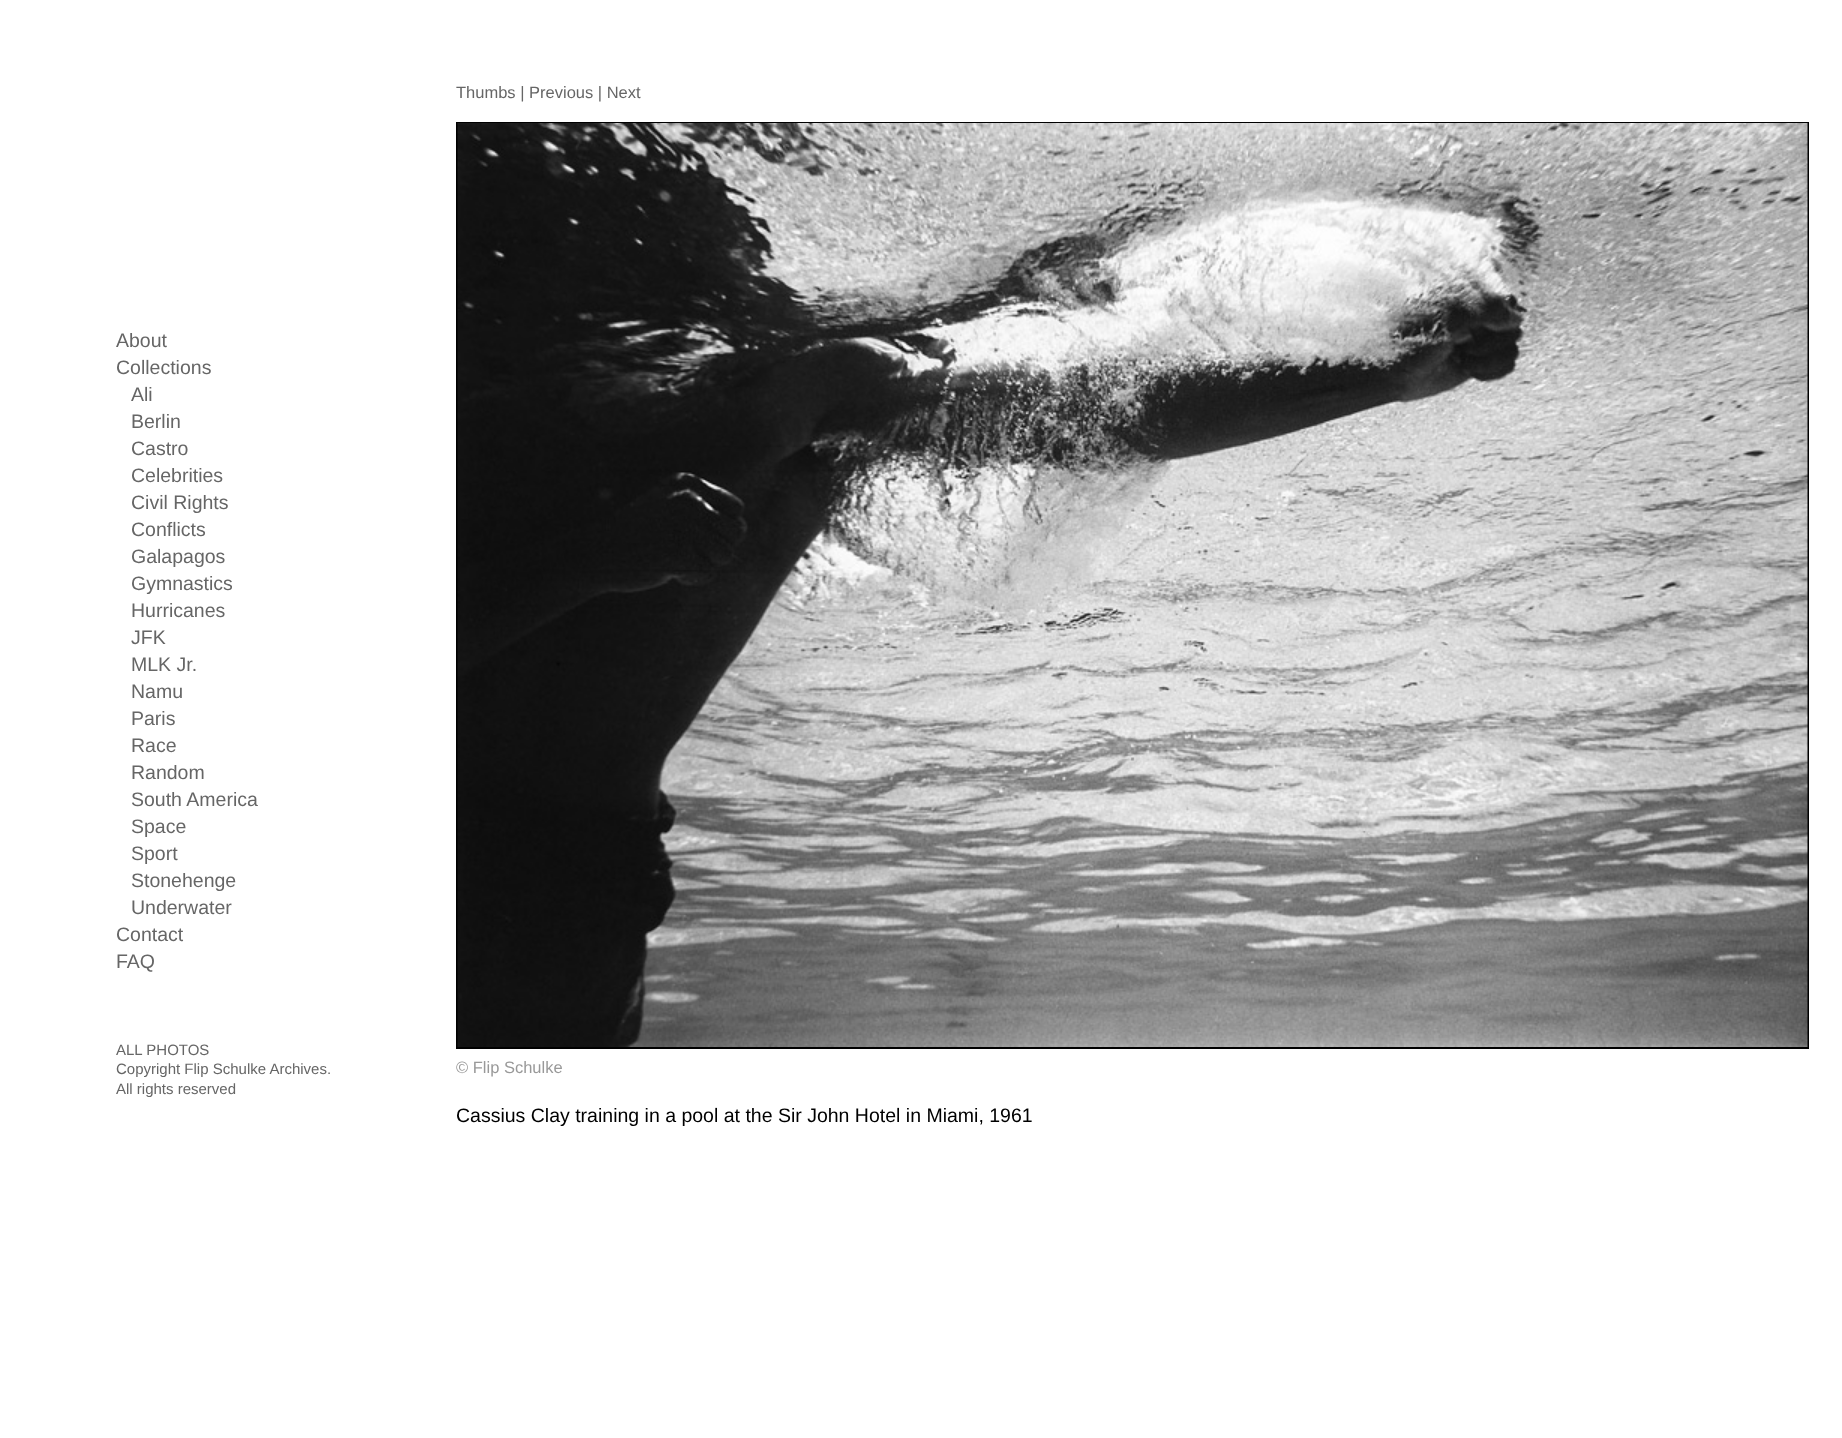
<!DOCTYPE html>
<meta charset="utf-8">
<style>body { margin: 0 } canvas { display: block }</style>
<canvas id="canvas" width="1842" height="1438"></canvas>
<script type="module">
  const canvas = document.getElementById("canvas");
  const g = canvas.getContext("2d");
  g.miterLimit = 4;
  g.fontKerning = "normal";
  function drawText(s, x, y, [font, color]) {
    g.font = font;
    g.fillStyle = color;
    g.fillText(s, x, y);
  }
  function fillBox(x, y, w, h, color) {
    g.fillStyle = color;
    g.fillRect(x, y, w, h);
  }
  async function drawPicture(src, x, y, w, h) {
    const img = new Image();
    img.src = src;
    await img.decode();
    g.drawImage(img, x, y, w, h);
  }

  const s1 = ["19.5px Liberation Sans", "#666666"];
  const s2 = ["15px Liberation Sans", "#666666"];
  const s3 = ["16.5px Liberation Sans", "#666666"];
  const s4 = ["16.5px Liberation Sans", "#999999"];
  const s5 = ["19.5px Liberation Sans", "#000000"];

  fillBox(0, 0, 1842, 1438, "#FFFFFF");
  drawText("About", 116, 347, s1);
  drawText("Collections", 116, 374, s1);
  drawText("Ali", 131, 401, s1);
  drawText("Berlin", 131, 428, s1);
  drawText("Castro", 131, 455, s1);
  drawText("Celebrities", 131, 482, s1);
  drawText("Civil Rights", 131, 509, s1);
  drawText("Conflicts", 131, 536, s1);
  drawText("Galapagos", 131, 563, s1);
  drawText("Gymnastics", 131, 590, s1);
  drawText("Hurricanes", 131, 617, s1);
  drawText("JFK", 131, 644, s1);
  drawText("MLK Jr.", 131, 671, s1);
  drawText("Namu", 131, 698, s1);
  drawText("Paris", 131, 725, s1);
  drawText("Race", 131, 752, s1);
  drawText("Random", 131, 779, s1);
  drawText("South America", 131, 806, s1);
  drawText("Space", 131, 833, s1);
  drawText("Sport", 131, 860, s1);
  drawText("Stonehenge", 131, 887, s1);
  drawText("Underwater", 131, 914, s1);
  drawText("Contact", 116, 941, s1);
  drawText("FAQ", 116, 968, s1);
  drawText("ALL PHOTOS", 116, 1055, s2);
  drawText("Copyright Flip Schulke Archives.", 116, 1074, s2);
  drawText("All rights reserved", 116, 1094, s2);
  drawText("Thumbs | Previous | Next", 456, 98, s3);
  g.strokeStyle = "#000000";
  g.lineWidth = 2;
  g.strokeRect(457, 123, 1351, 925);
  await drawPicture("pic1.png", 457, 123, 1351, 924);
  drawText("© Flip Schulke", 456, 1073, s4);
  drawText("Cassius Clay training in a pool at the Sir John Hotel in Miami, 1961", 456, 1122, s5);
</script>
